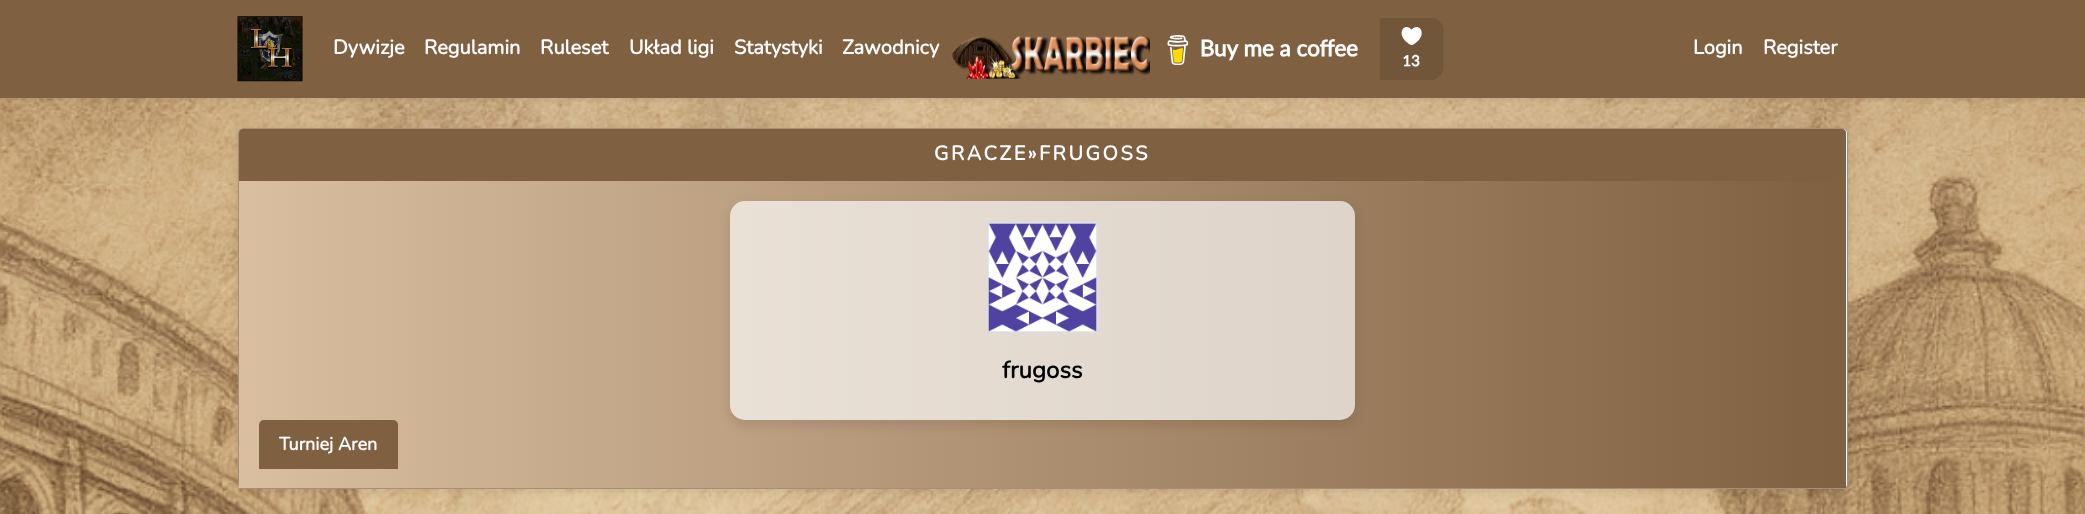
<!DOCTYPE html>
<meta charset="utf-8">
<style>body { margin: 0 } canvas { display: block }</style>
<canvas id="canvas" width="2085" height="514"></canvas>
<script type="module">
  const canvas = document.getElementById("canvas");
  const g = canvas.getContext("2d");
  g.miterLimit = 4;
  g.fontKerning = "normal";
  function drawText(s, x, y, [font, color]) {
    g.font = font;
    g.fillStyle = color;
    g.fillText(s, x, y);
  }
  function fillBox(x, y, w, h, color) {
    g.fillStyle = color;
    g.fillRect(x, y, w, h);
  }
  function fillRounded(x, y, w, h, r, color) {
    g.fillStyle = color;
    g.beginPath();
    g.roundRect(x, y, w, h, r);
    g.fill();
  }
  async function drawPicture(src, x, y, w, h) {
    const img = new Image();
    img.src = src;
    await img.decode();
    g.drawImage(img, x, y, w, h);
  }
  let gradient;

  const s1 = ["bold 20px Nunito", "#FFFFFF"];
  const s2 = ["bold 24px Nunito", "#000000"];
  const s3 = ["bold 18px Nunito", "#FFFFFF"];

  fillBox(0, 0, 2085, 514, "#FFFFFF");
  await drawPicture("pic1.png", 0, 98, 2085, 416);
  g.fillStyle = "rgba(0, 0, 0, 0.07)";
  g.filter = "blur(2.5px)";
  g.beginPath();
  g.rect(0, 3, 2085, 97);
  g.fill();
  g.filter = "none";
  fillBox(0, 0, 2085, 98, "#7F6041");
  await drawPicture("pic2.png", 237, 16, 66, 66);
  drawText("Dywizje", 333, 54, s1);
  drawText("Regulamin", 424, 54, s1);
  drawText("Ruleset", 540, 54, s1);
  drawText("Układ ligi", 629, 54, s1);
  drawText("Statystyki", 734, 54, s1);
  drawText("Zawodnicy", 842, 54, s1);
  await drawPicture("pic3.png", 951, 35, 199, 44);
  await drawPicture("pic4.png", 1167, 18, 277, 62);
  drawText("Login", 1693, 54, s1);
  drawText("Register", 1763, 54, s1);
  g.fillStyle = "rgba(0, 0, 0, 0.1)";
  g.filter = "blur(4px)";
  g.beginPath();
  g.roundRect(238, 130, 1610, 361, 5);
  g.fill();
  g.filter = "none";
  g.fillStyle = "#FFFFFF";
  g.beginPath();
  g.roundRect(238.5, 128.5, 1609, 360, 4.5);
  g.fill();
  g.strokeStyle = "#A98D74";
  g.stroke();
  g.fillStyle = "#7F6041";
  g.beginPath();
  g.roundRect(239, 129, 1607, 52, [4, 4, 0, 0]);
  g.fill();
  g.letterSpacing = "2.5px";
  drawText("GRACZE»FRUGOSS", 934, 160, s1);
  gradient = g.createLinearGradient(239, 334, 1846, 334);
  gradient.addColorStop(0, "#D9BEA0");
  gradient.addColorStop(1, "#7F6041");
  g.fillStyle = gradient;
  g.fillRect(239, 181, 1607, 307);
  g.save();
  g.beginPath();
  g.moveTo(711, 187);
  g.lineTo(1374, 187);
  g.lineTo(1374, 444);
  g.lineTo(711, 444);
  g.closePath();
  g.moveTo(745, 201);
  g.lineTo(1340, 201);
  g.bezierCurveTo(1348.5, 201, 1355, 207.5, 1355, 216);
  g.lineTo(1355, 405);
  g.bezierCurveTo(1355, 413.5, 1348.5, 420, 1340, 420);
  g.lineTo(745, 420);
  g.bezierCurveTo(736.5, 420, 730, 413.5, 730, 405);
  g.lineTo(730, 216);
  g.bezierCurveTo(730, 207.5, 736.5, 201, 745, 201);
  g.closePath();
  g.clip("evenodd");
  g.fillStyle = "rgba(0, 0, 0, 0.1)";
  g.filter = "blur(6px)";
  g.beginPath();
  g.roundRect(730, 206, 625, 219, 15);
  g.fill();
  g.filter = "none";
  g.restore();
  fillRounded(730, 201, 625, 219, 15, "rgba(255, 255, 255, 0.67)");
  g.strokeStyle = "#DDDDDD";
  g.lineWidth = 3;
  g.strokeRect(987.5, 222.5, 110, 110);
  await drawPicture("pic5.png", 988, 223, 109, 109);
  g.letterSpacing = "0px";
  drawText("frugoss", 1002, 378, s2);
  g.fillStyle = "#7F6041";
  g.beginPath();
  g.roundRect(259, 420, 139, 49, [5, 5, 0, 0]);
  g.fill();
  drawText("Turniej Aren", 279, 450, s3);
</script>
